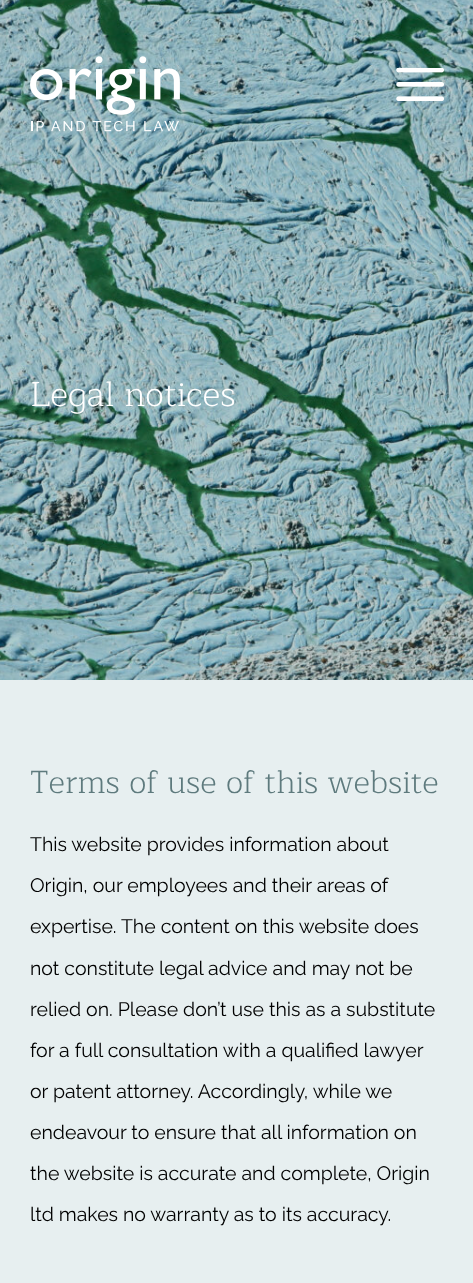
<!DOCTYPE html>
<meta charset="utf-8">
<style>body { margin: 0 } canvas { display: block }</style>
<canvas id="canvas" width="473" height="1283"></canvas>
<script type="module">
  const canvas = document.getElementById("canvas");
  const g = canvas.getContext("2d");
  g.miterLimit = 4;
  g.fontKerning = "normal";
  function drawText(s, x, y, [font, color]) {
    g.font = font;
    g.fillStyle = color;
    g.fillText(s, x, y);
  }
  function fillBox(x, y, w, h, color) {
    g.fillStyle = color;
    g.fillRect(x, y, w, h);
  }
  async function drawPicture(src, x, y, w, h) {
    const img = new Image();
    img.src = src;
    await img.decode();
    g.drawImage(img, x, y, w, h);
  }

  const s1 = ["300 34.5px Maitree", "#FFFFFF"];
  const s2 = ["300 31.9px Maitree", "#5E7A7D"];
  const s3 = ["19.5px Raleway", "#000000"];

  fillBox(0, 0, 473, 1283, "#E7EFF0");
  await drawPicture("pic3.png", 0, 0, 473, 680);
  await drawPicture("pic1.png", 30, 56, 150, 76);
  await drawPicture("pic2.png", 396, 68, 48, 33);
  drawText("Legal notices", 30, 406, s1);
  drawText("Terms of use of this website", 30, 793, s2);
  drawText("This website provides information about", 30, 851, s3);
  drawText("Origin, our employees and their areas of", 30, 892, s3);
  drawText("expertise. The content on this website does", 30, 933, s3);
  drawText("not constitute legal advice and may not be", 30, 975, s3);
  drawText("relied on. Please don’t use this as a substitute", 30, 1016, s3);
  drawText("for a full consultation with a qualified lawyer", 30, 1057, s3);
  drawText("or patent attorney. Accordingly, while we", 30, 1098, s3);
  drawText("endeavour to ensure that all information on", 30, 1139, s3);
  drawText("the website is accurate and complete, Origin", 30, 1180, s3);
  drawText("ltd makes no warranty as to its accuracy.", 30, 1221, s3);
</script>
